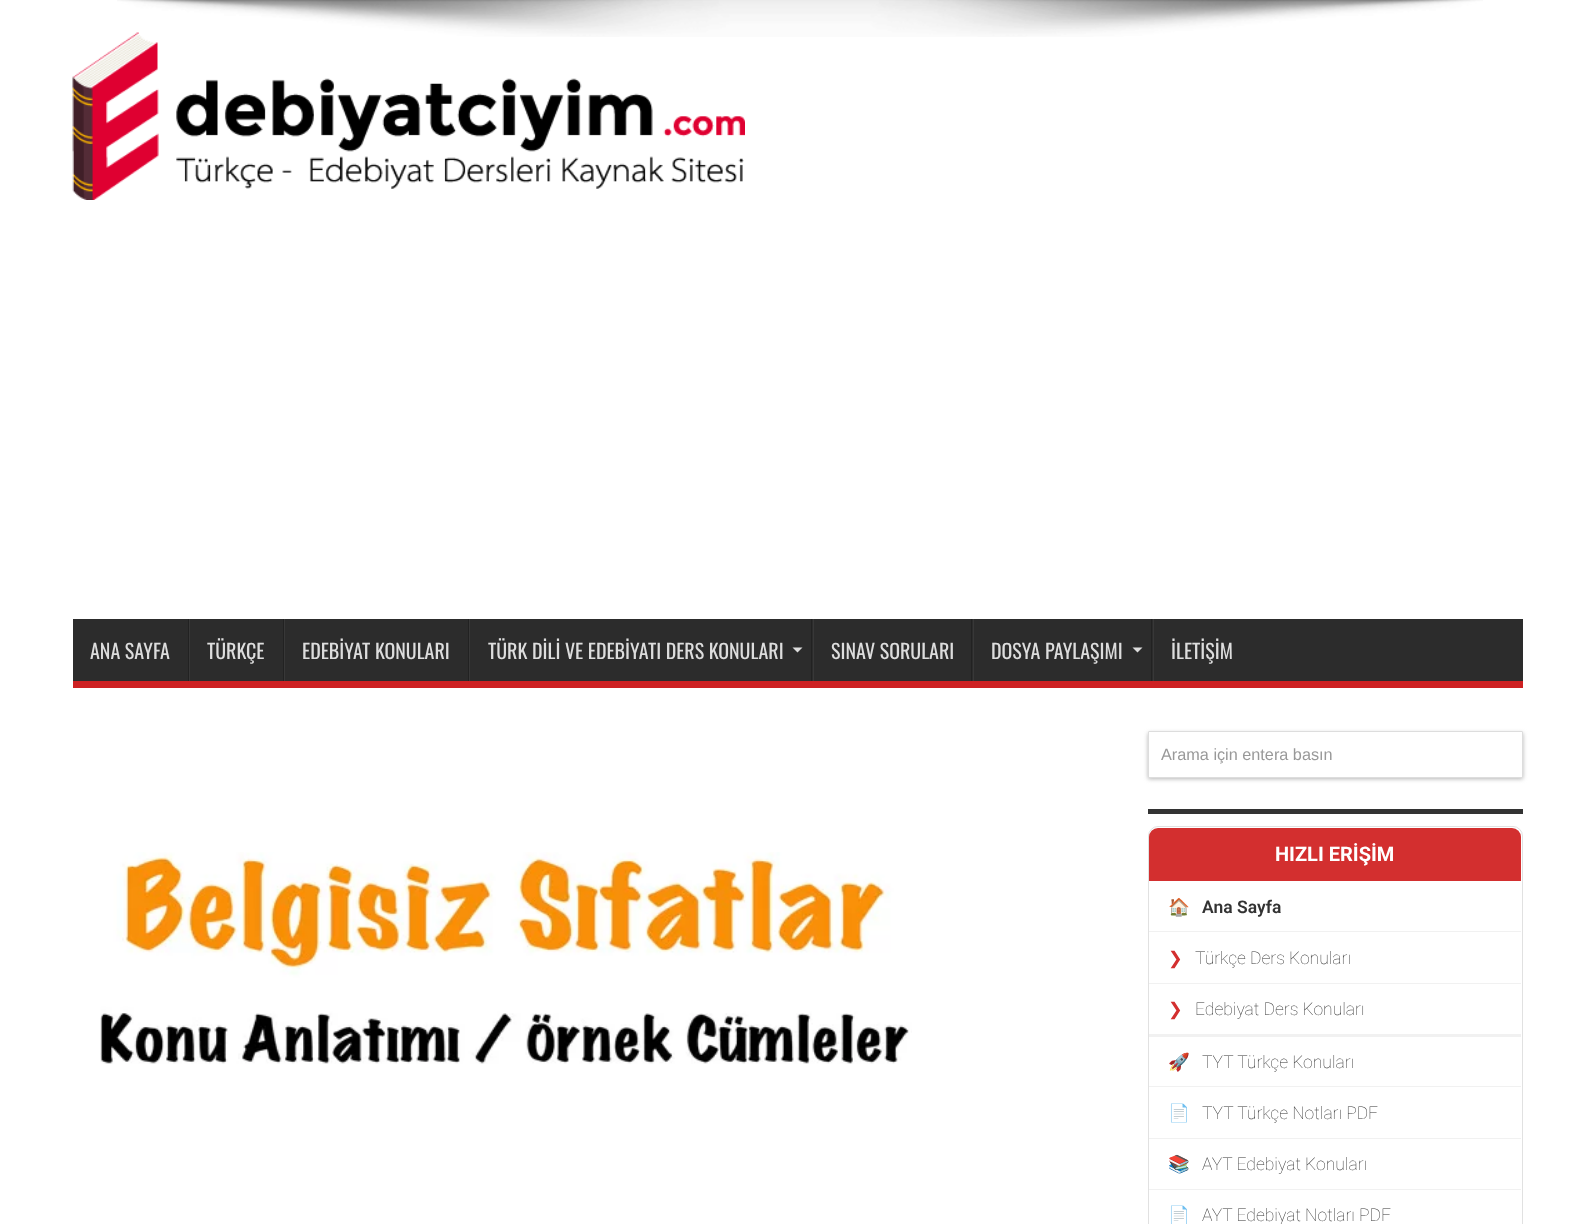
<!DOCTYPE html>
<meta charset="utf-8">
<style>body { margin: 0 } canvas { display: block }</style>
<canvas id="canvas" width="1594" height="1224"></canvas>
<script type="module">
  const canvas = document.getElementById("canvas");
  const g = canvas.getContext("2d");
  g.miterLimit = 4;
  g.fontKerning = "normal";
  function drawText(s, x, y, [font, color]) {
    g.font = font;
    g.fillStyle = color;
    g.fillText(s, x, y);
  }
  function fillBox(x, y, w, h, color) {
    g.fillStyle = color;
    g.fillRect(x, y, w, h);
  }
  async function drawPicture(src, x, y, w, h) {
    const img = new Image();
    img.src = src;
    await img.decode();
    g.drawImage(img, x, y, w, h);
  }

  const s1 = ["20px Oswald", "#DDDDDD"];
  const s2 = ["16.25px Liberation Sans", "#999999"];
  const s3 = ["bold 20px Roboto", "#FFFFFF"];
  const s4 = ["bold 17.5px Noto Color Emoji", "#D32F2F"];
  const s5 = ["600 17.5px Roboto", "#333333"];
  const s6 = ["17.5px DejaVu Sans", "#D32F2F"];
  const s7 = ["100 17.5px Roboto", "#333333"];
  const s8 = ["17.5px Noto Color Emoji", "#D32F2F"];

  fillBox(0, 0, 1594, 1224, "#FFFFFF");
  await drawPicture("pic1.png", 117, 0, 1366, 37);
  await drawPicture("pic2.png", 72, 32, 673, 168);
  fillBox(73, 619, 1450, 62, "#2C2C2C");
  fillBox(73, 681, 1450, 7, "#CD2122");
  drawText("ANA SAYFA", 90, 659, s1);
  fillBox(188, 619, 1, 62, "#222222");
  fillBox(189, 619, 1, 62, "#383838");
  drawText("TÜRKÇE", 207, 659, s1);
  fillBox(283, 619, 1, 62, "#222222");
  fillBox(284, 619, 1, 62, "#383838");
  drawText("EDEBİYAT KONULARI", 302, 659, s1);
  fillBox(468, 619, 1, 62, "#222222");
  fillBox(469, 619, 1, 62, "#383838");
  drawText("TÜRK DİLİ VE EDEBİYATI DERS KONULARI", 488, 659, s1);
  g.beginPath();
  g.moveTo(792.5, 647.5);
  g.lineTo(802.5, 647.5);
  g.lineTo(797.5, 652.5);
  g.closePath();
  g.fill();
  fillBox(811, 619, 1, 62, "#222222");
  fillBox(813, 619, 1, 62, "#383838");
  drawText("SINAV SORULARI", 831, 659, s1);
  fillBox(971, 619, 1, 62, "#222222");
  fillBox(973, 619, 1, 62, "#383838");
  drawText("DOSYA PAYLAŞIMI", 991, 659, s1);
  g.beginPath();
  g.moveTo(1132.5, 647.5);
  g.lineTo(1142.5, 647.5);
  g.lineTo(1137.5, 652.5);
  g.closePath();
  g.fill();
  fillBox(1151, 619, 1, 62, "#222222");
  fillBox(1153, 619, 1, 62, "#383838");
  drawText("İLETİŞİM", 1171, 659, s1);
  await drawPicture("pic3.png", 100, 852, 812, 212);
  g.fillStyle = "#B5B5B5";
  g.filter = "blur(2px)";
  g.beginPath();
  g.roundRect(1148, 733, 375, 46, 1);
  g.fill();
  g.filter = "none";
  g.fillStyle = "#FFFFFF";
  g.beginPath();
  g.roundRect(1148.5, 731.5, 374, 46, 0.5);
  g.fill();
  g.strokeStyle = "#DDDDDD";
  g.stroke();
  drawText("Arama için entera basın", 1161, 760, s2);
  fillBox(1148, 809, 375, 5, "#333333");
  g.beginPath();
  g.roundRect(1148.5, 826.5, 374, 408, 9.5);
  g.strokeStyle = "#E1E1E1";
  g.stroke();
  g.fillStyle = "#D32F2F";
  g.beginPath();
  g.roundRect(1149, 828, 372, 53, [9, 9, 0, 0]);
  g.fill();
  drawText("HIZLI ERİŞİM", 1275, 861, s3);
  fillBox(1149, 931, 372, 1, "#F1F1F1");
  drawText("🏠", 1168, 913, s4);
  drawText("Ana Sayfa", 1202, 913, s5);
  fillBox(1149, 983, 372, 1, "#F1F1F1");
  drawText("❯", 1168, 964, s6);
  drawText("Türkçe Ders Konuları", 1195, 964, s7);
  fillBox(1149, 1034, 372, 3, "#F1F1F1");
  drawText("❯", 1168, 1015, s6);
  drawText("Edebiyat Ders Konuları", 1195, 1015, s7);
  fillBox(1149, 1086, 372, 1, "#F1F1F1");
  drawText("🚀", 1168, 1068, s8);
  drawText("TYT Türkçe Konuları", 1202, 1068, s7);
  fillBox(1149, 1138, 372, 1, "#F1F1F1");
  drawText("📄", 1168, 1119, s8);
  drawText("TYT Türkçe Notları PDF", 1202, 1119, s7);
  fillBox(1149, 1189, 372, 1, "#F1F1F1");
  drawText("📚", 1168, 1170, s8);
  drawText("AYT Edebiyat Konuları", 1202, 1170, s7);
  drawText("📄", 1168, 1221, s8);
  drawText("AYT Edebiyat Notları PDF", 1202, 1221, s7);
</script>
